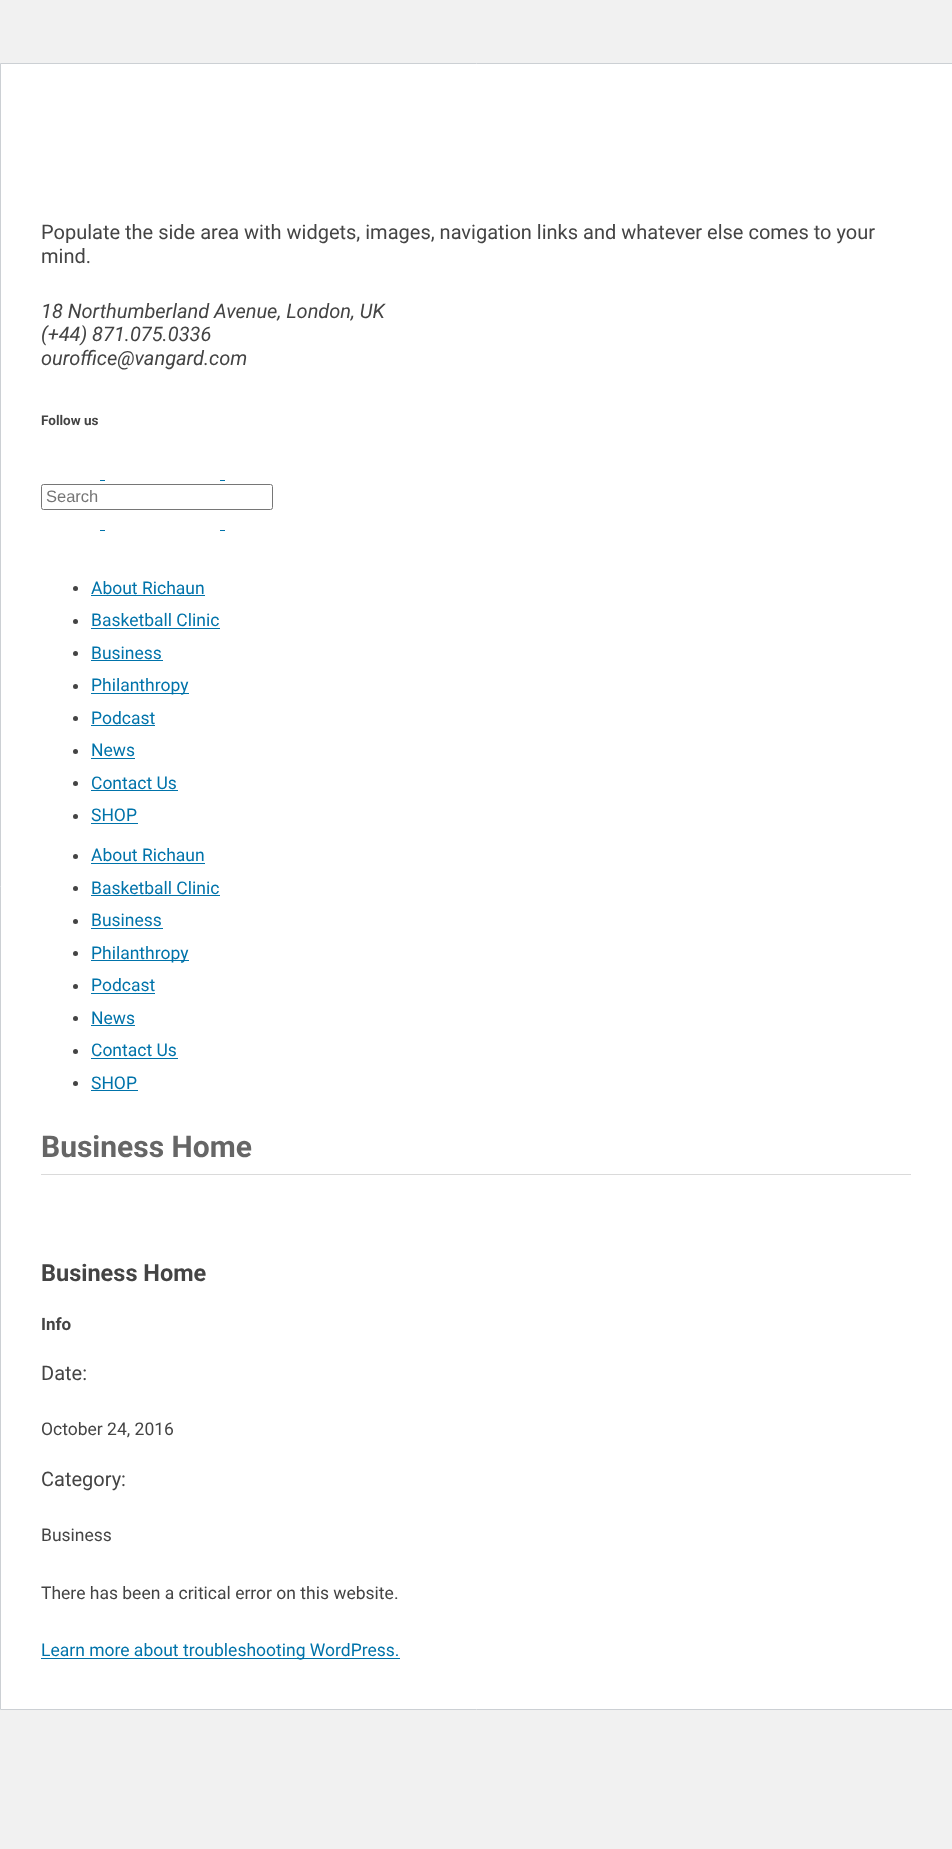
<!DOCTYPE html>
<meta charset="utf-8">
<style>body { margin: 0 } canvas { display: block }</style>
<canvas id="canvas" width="952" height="1849"></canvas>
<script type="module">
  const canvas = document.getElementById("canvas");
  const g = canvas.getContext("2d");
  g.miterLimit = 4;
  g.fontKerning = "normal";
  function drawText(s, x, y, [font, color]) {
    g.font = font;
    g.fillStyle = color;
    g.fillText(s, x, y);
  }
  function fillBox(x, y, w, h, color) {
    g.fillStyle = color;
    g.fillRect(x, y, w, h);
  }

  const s1 = ["20px Roboto", "#444444"];
  const s2 = ["italic 20px Roboto", "#444444"];
  const s3 = ["bold 13.5px Roboto", "#444444"];
  const s4 = ["16.5px Liberation Sans", "#757575"];
  const s5 = ["17.5px Roboto", "#0073AA"];
  const s6 = ["bold 30px Roboto", "#666666"];
  const s7 = ["bold 23.5px Roboto", "#444444"];
  const s8 = ["bold 17px Roboto", "#444444"];
  const s9 = ["17.5px Roboto", "#444444"];

  fillBox(0, 0, 952, 1849, "#F1F1F1");
  g.fillStyle = "#FFFFFF";
  g.beginPath();
  g.rect(0.5, 63.5, 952, 1646);
  g.fill();
  g.strokeStyle = "#CCD0D4";
  g.stroke();
  drawText("Populate the side area with widgets, images, navigation links and whatever else comes to your", 41, 239, s1);
  drawText("mind.", 41, 263, s1);
  drawText("18 Northumberland Avenue, London, UK", 41, 318, s2);
  drawText("(+44) 871.075.0336", 41, 341, s2);
  drawText("ouroffice@vangard.com", 41, 365, s2);
  drawText("Follow us", 41, 425, s3);
  fillBox(100, 480, 5, 1, "#0073AA");
  fillBox(220, 480, 5, 1, "#0073AA");
  g.beginPath();
  g.roundRect(41.5, 484.5, 231, 25, 2);
  g.strokeStyle = "#767676";
  g.stroke();
  drawText("Search", 46, 502, s4);
  fillBox(100, 530, 5, 1, "#0073AA");
  fillBox(220, 530, 5, 1, "#0073AA");
  g.fillStyle = "#444444";
  g.beginPath();
  g.arc(75.5, 588.5, 2.5, 0, Math.PI * 2);
  g.fill();
  drawText("About Richaun", 91, 594, s5);
  fillBox(91, 595, 114, 1, "#0073AA");
  g.fillStyle = "#444444";
  g.beginPath();
  g.arc(75.5, 621.5, 2.5, 0, Math.PI * 2);
  g.fill();
  drawText("Basketball Clinic", 91, 626, s5);
  fillBox(91, 628, 129, 1, "#0073AA");
  g.fillStyle = "#444444";
  g.beginPath();
  g.arc(75.5, 653.5, 2.5, 0, Math.PI * 2);
  g.fill();
  drawText("Business", 91, 659, s5);
  fillBox(91, 660, 72, 1, "#0073AA");
  g.fillStyle = "#444444";
  g.beginPath();
  g.arc(75.5, 686.5, 2.5, 0, Math.PI * 2);
  g.fill();
  fillBox(91, 693, 98, 1, "#0073AA");
  drawText("Philanthropy", 91, 691, s5);
  g.fillStyle = "#444444";
  g.beginPath();
  g.arc(75.5, 718.5, 2.5, 0, Math.PI * 2);
  g.fill();
  drawText("Podcast", 91, 724, s5);
  fillBox(91, 725, 64, 1, "#0073AA");
  g.fillStyle = "#444444";
  g.beginPath();
  g.arc(75.5, 751.5, 2.5, 0, Math.PI * 2);
  g.fill();
  drawText("News", 91, 756, s5);
  fillBox(91, 758, 44, 1, "#0073AA");
  g.fillStyle = "#444444";
  g.beginPath();
  g.arc(75.5, 783.5, 2.5, 0, Math.PI * 2);
  g.fill();
  drawText("Contact Us", 91, 789, s5);
  fillBox(91, 790, 87, 1, "#0073AA");
  g.fillStyle = "#444444";
  g.beginPath();
  g.arc(75.5, 816.5, 2.5, 0, Math.PI * 2);
  g.fill();
  drawText("SHOP", 91, 821, s5);
  fillBox(91, 823, 47, 1, "#0073AA");
  g.fillStyle = "#444444";
  g.beginPath();
  g.arc(75.5, 856.5, 2.5, 0, Math.PI * 2);
  g.fill();
  drawText("About Richaun", 91, 861, s5);
  fillBox(91, 863, 114, 1, "#0073AA");
  g.fillStyle = "#444444";
  g.beginPath();
  g.arc(75.5, 888.5, 2.5, 0, Math.PI * 2);
  g.fill();
  drawText("Basketball Clinic", 91, 894, s5);
  fillBox(91, 895, 129, 1, "#0073AA");
  g.fillStyle = "#444444";
  g.beginPath();
  g.arc(75.5, 921.5, 2.5, 0, Math.PI * 2);
  g.fill();
  drawText("Business", 91, 926, s5);
  fillBox(91, 928, 72, 1, "#0073AA");
  g.fillStyle = "#444444";
  g.beginPath();
  g.arc(75.5, 953.5, 2.5, 0, Math.PI * 2);
  g.fill();
  fillBox(91, 960, 98, 1, "#0073AA");
  drawText("Philanthropy", 91, 959, s5);
  g.fillStyle = "#444444";
  g.beginPath();
  g.arc(75.5, 986.5, 2.5, 0, Math.PI * 2);
  g.fill();
  drawText("Podcast", 91, 991, s5);
  fillBox(91, 993, 64, 1, "#0073AA");
  g.fillStyle = "#444444";
  g.beginPath();
  g.arc(75.5, 1018.5, 2.5, 0, Math.PI * 2);
  g.fill();
  drawText("News", 91, 1024, s5);
  fillBox(91, 1025, 44, 1, "#0073AA");
  g.fillStyle = "#444444";
  g.beginPath();
  g.arc(75.5, 1051.5, 2.5, 0, Math.PI * 2);
  g.fill();
  drawText("Contact Us", 91, 1056, s5);
  fillBox(91, 1058, 87, 1, "#0073AA");
  g.fillStyle = "#444444";
  g.beginPath();
  g.arc(75.5, 1083.5, 2.5, 0, Math.PI * 2);
  g.fill();
  drawText("SHOP", 91, 1089, s5);
  fillBox(91, 1090, 47, 1, "#0073AA");
  fillBox(41, 1174, 870, 1, "#DADADA");
  drawText("Business Home", 41, 1157, s6);
  drawText("Business Home", 41, 1281, s7);
  drawText("Info", 41, 1330, s8);
  drawText("Date:", 41, 1380, s1);
  drawText("October 24, 2016", 41, 1435, s9);
  drawText("Category:", 41, 1486, s1);
  drawText("Business", 41, 1541, s9);
  drawText("There has been a critical error on this website.", 41, 1599, s9);
  fillBox(41, 1658, 359, 1, "#0073AA");
  drawText("Learn more about troubleshooting WordPress.", 41, 1656, s5);
</script>
